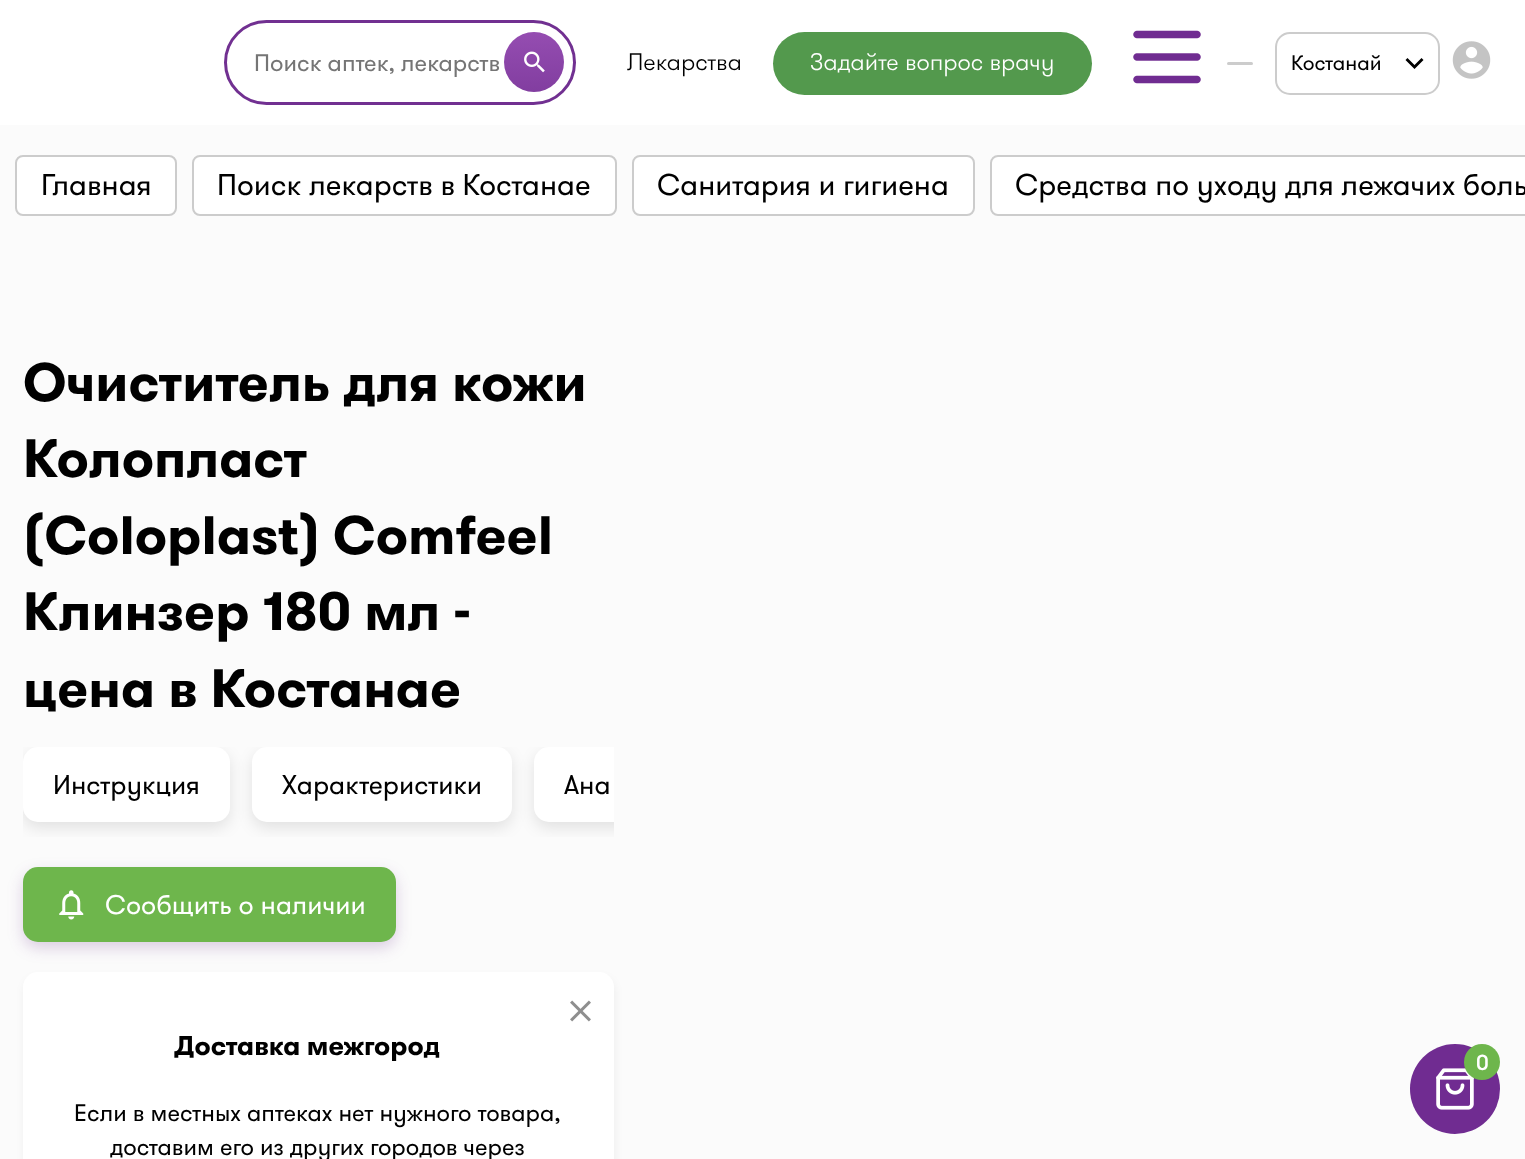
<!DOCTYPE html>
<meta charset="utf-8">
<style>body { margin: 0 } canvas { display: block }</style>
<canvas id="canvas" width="1525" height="1159"></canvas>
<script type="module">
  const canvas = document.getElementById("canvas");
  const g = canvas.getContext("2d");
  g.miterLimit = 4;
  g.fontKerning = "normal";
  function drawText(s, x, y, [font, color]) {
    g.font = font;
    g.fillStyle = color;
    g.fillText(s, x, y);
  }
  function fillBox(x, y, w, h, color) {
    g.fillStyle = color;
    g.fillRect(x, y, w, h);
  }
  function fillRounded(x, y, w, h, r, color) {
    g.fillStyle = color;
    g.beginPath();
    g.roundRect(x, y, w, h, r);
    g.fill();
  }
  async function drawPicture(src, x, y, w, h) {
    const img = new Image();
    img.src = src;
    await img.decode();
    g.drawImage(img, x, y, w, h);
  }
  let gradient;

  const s1 = ["24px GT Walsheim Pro", "#757575"];
  const s2 = ["300 24px GT Walsheim Pro", "#000000"];
  const s3 = ["300 24px GT Walsheim Pro", "#FFFFFF"];
  const s4 = ["21px GT Walsheim Pro", "#000000"];
  const s5 = ["30px GT Walsheim Pro", "#000000"];
  const s6 = ["bold 54px GT Walsheim Pro", "#000000"];
  const s7 = ["27px GT Walsheim Pro", "#000000"];
  const s8 = ["27px GT Walsheim Pro", "#FFFFFF"];
  const s9 = ["bold 27px GT Walsheim Pro", "#000000"];
  const s10 = ["24px GT Walsheim Pro", "#000000"];
  const s11 = ["bold 21px 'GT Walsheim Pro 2'", "#FFFFFF"];

  fillBox(0, 0, 1525, 1159, "#FBFBFB");
  fillBox(0, 0, 1525, 125, "#FFFFFF");
  g.beginPath();
  g.roundRect(225.5, 21.5, 349, 82, 41);
  g.strokeStyle = "#713091";
  g.lineWidth = 3;
  g.stroke();
  drawText("Поиск аптек, лекарств", 254, 71, s1);
  gradient = g.createLinearGradient(531, -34, 536, 144);
  gradient.addColorStop(0, "#AA5EC4");
  gradient.addColorStop(1, "#713091");
  g.fillStyle = gradient;
  g.beginPath();
  g.arc(534, 62, 30, 0, Math.PI * 2);
  g.fill();
  await drawPicture("pic1.png", 524, 51, 21, 22);
  drawText("Лекарства", 627, 70, s2);
  fillRounded(773, 32, 319, 63, 31.5, "#53994D");
  drawText("Задайте вопрос врачу", 810, 70, s3);
  await drawPicture("pic2.png", 1133, 30, 68, 54);
  fillRounded(1227, 62, 26, 3, 1.5, "#CCCCCC");
  g.beginPath();
  g.roundRect(1276, 33, 163, 61, 14);
  g.strokeStyle = "#CCCCCC";
  g.lineWidth = 2;
  g.stroke();
  drawText("Костанай", 1291, 70, s4);
  g.beginPath();
  g.moveTo(1421.5, 58);
  g.lineTo(1423.5, 60);
  g.lineTo(1414.5, 69);
  g.lineTo(1405.5, 60);
  g.lineTo(1407.5, 58);
  g.lineTo(1414.5, 65);
  g.closePath();
  g.fill();
  await drawPicture("pic3.png", 1452, 41, 39, 38);
  g.fillStyle = "#FFFFFF";
  g.beginPath();
  g.roundRect(16, 156, 160, 59, 7);
  g.fill();
  g.stroke();
  drawText("Главная", 41, 195, s5);
  g.fillStyle = "#FFFFFF";
  g.beginPath();
  g.roundRect(193, 156, 423, 59, 7);
  g.fill();
  g.stroke();
  drawText("Поиск лекарств в Костанае", 217, 195, s5);
  g.fillStyle = "#FFFFFF";
  g.beginPath();
  g.roundRect(633, 156, 341, 59, 7);
  g.fill();
  g.stroke();
  drawText("Санитария и гигиена", 657, 195, s5);
  g.fillStyle = "#FFFFFF";
  g.beginPath();
  g.moveTo(998, 155);
  g.lineTo(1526, 155);
  g.lineTo(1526, 216);
  g.lineTo(998, 216);
  g.bezierCurveTo(993.5, 216, 990, 212.5, 990, 208);
  g.lineTo(990, 163);
  g.bezierCurveTo(990, 158.5, 993.5, 155, 998, 155);
  g.closePath();
  g.fill();
  g.beginPath();
  g.roundRect(991, 156, 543, 59, 7);
  g.stroke();
  drawText("Средства по уходу для лежачих боль", 1015, 195, s5);
  drawText("Очиститель для кожи", 23, 401, s6);
  drawText("Колопласт", 23, 477, s6);
  drawText("(Coloplast) Comfeel", 23, 554, s6);
  drawText("Клинзер 180 мл -", 23, 630, s6);
  drawText("цена в Костанае", 23, 707, s6);
  g.save();
  g.beginPath();
  g.rect(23, 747, 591, 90);
  g.clip();
  g.fillStyle = "rgba(0, 0, 0, 0.1)";
  g.filter = "blur(7.5px)";
  g.beginPath();
  g.roundRect(23, 753, 207, 75, 15);
  g.fill();
  g.filter = "none";
  g.restore();
  fillRounded(23, 747, 207, 75, 15, "#FFFFFF");
  drawText("Инструкция", 53, 794, s7);
  g.save();
  g.beginPath();
  g.rect(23, 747, 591, 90);
  g.clip();
  g.fillStyle = "rgba(0, 0, 0, 0.1)";
  g.filter = "blur(7.5px)";
  g.beginPath();
  g.roundRect(252, 753, 260, 75, 15);
  g.fill();
  g.filter = "none";
  g.restore();
  fillRounded(252, 747, 260, 75, 15, "#FFFFFF");
  drawText("Характеристики", 282, 794, s7);
  g.save();
  g.beginPath();
  g.rect(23, 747, 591, 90);
  g.clip();
  g.fillStyle = "rgba(0, 0, 0, 0.1)";
  g.filter = "blur(7.5px)";
  g.beginPath();
  g.roundRect(534, 753, 290, 75, 15);
  g.fill();
  g.filter = "none";
  g.restore();
  g.fillStyle = "#FFFFFF";
  g.beginPath();
  g.roundRect(534, 747, 80, 75, [15, 0, 0, 15]);
  g.fill();
  drawText("Ана", 564, 794, s7);
  g.fillStyle = "rgba(92, 26, 124, 0.2)";
  g.filter = "blur(7.5px)";
  g.beginPath();
  g.roundRect(23, 873, 373, 75, 15);
  g.fill();
  g.filter = "none";
  fillRounded(23, 867, 373, 75, 15, "#6EB64C");
  await drawPicture("pic4.png", 59, 890, 25, 30);
  drawText("Сообщить о наличии", 105, 914, s8);
  g.fillStyle = "rgba(0, 0, 0, 0.05)";
  g.filter = "blur(4px)";
  g.beginPath();
  g.roundRect(24, 977, 591, 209, 15);
  g.fill();
  g.filter = "none";
  fillRounded(23, 972, 591, 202, 15, "#FFFFFF");
  await drawPicture("pic5.png", 570, 1000, 21, 22);
  drawText("Доставка межгород", 174, 1055, s9);
  drawText("Если в местных аптеках нет нужного товара,", 74, 1121, s10);
  drawText("доставим его из других городов через", 110, 1155, s10);
  g.fillStyle = "#702C91";
  g.beginPath();
  g.arc(1455, 1089, 45, 0, Math.PI * 2);
  g.fill();
  await drawPicture("pic6.png", 1436, 1068, 38, 42);
  g.fillStyle = "#6EB64C";
  g.beginPath();
  g.arc(1482, 1062, 18, 0, Math.PI * 2);
  g.fill();
  drawText("0", 1476, 1070, s11);
</script>
